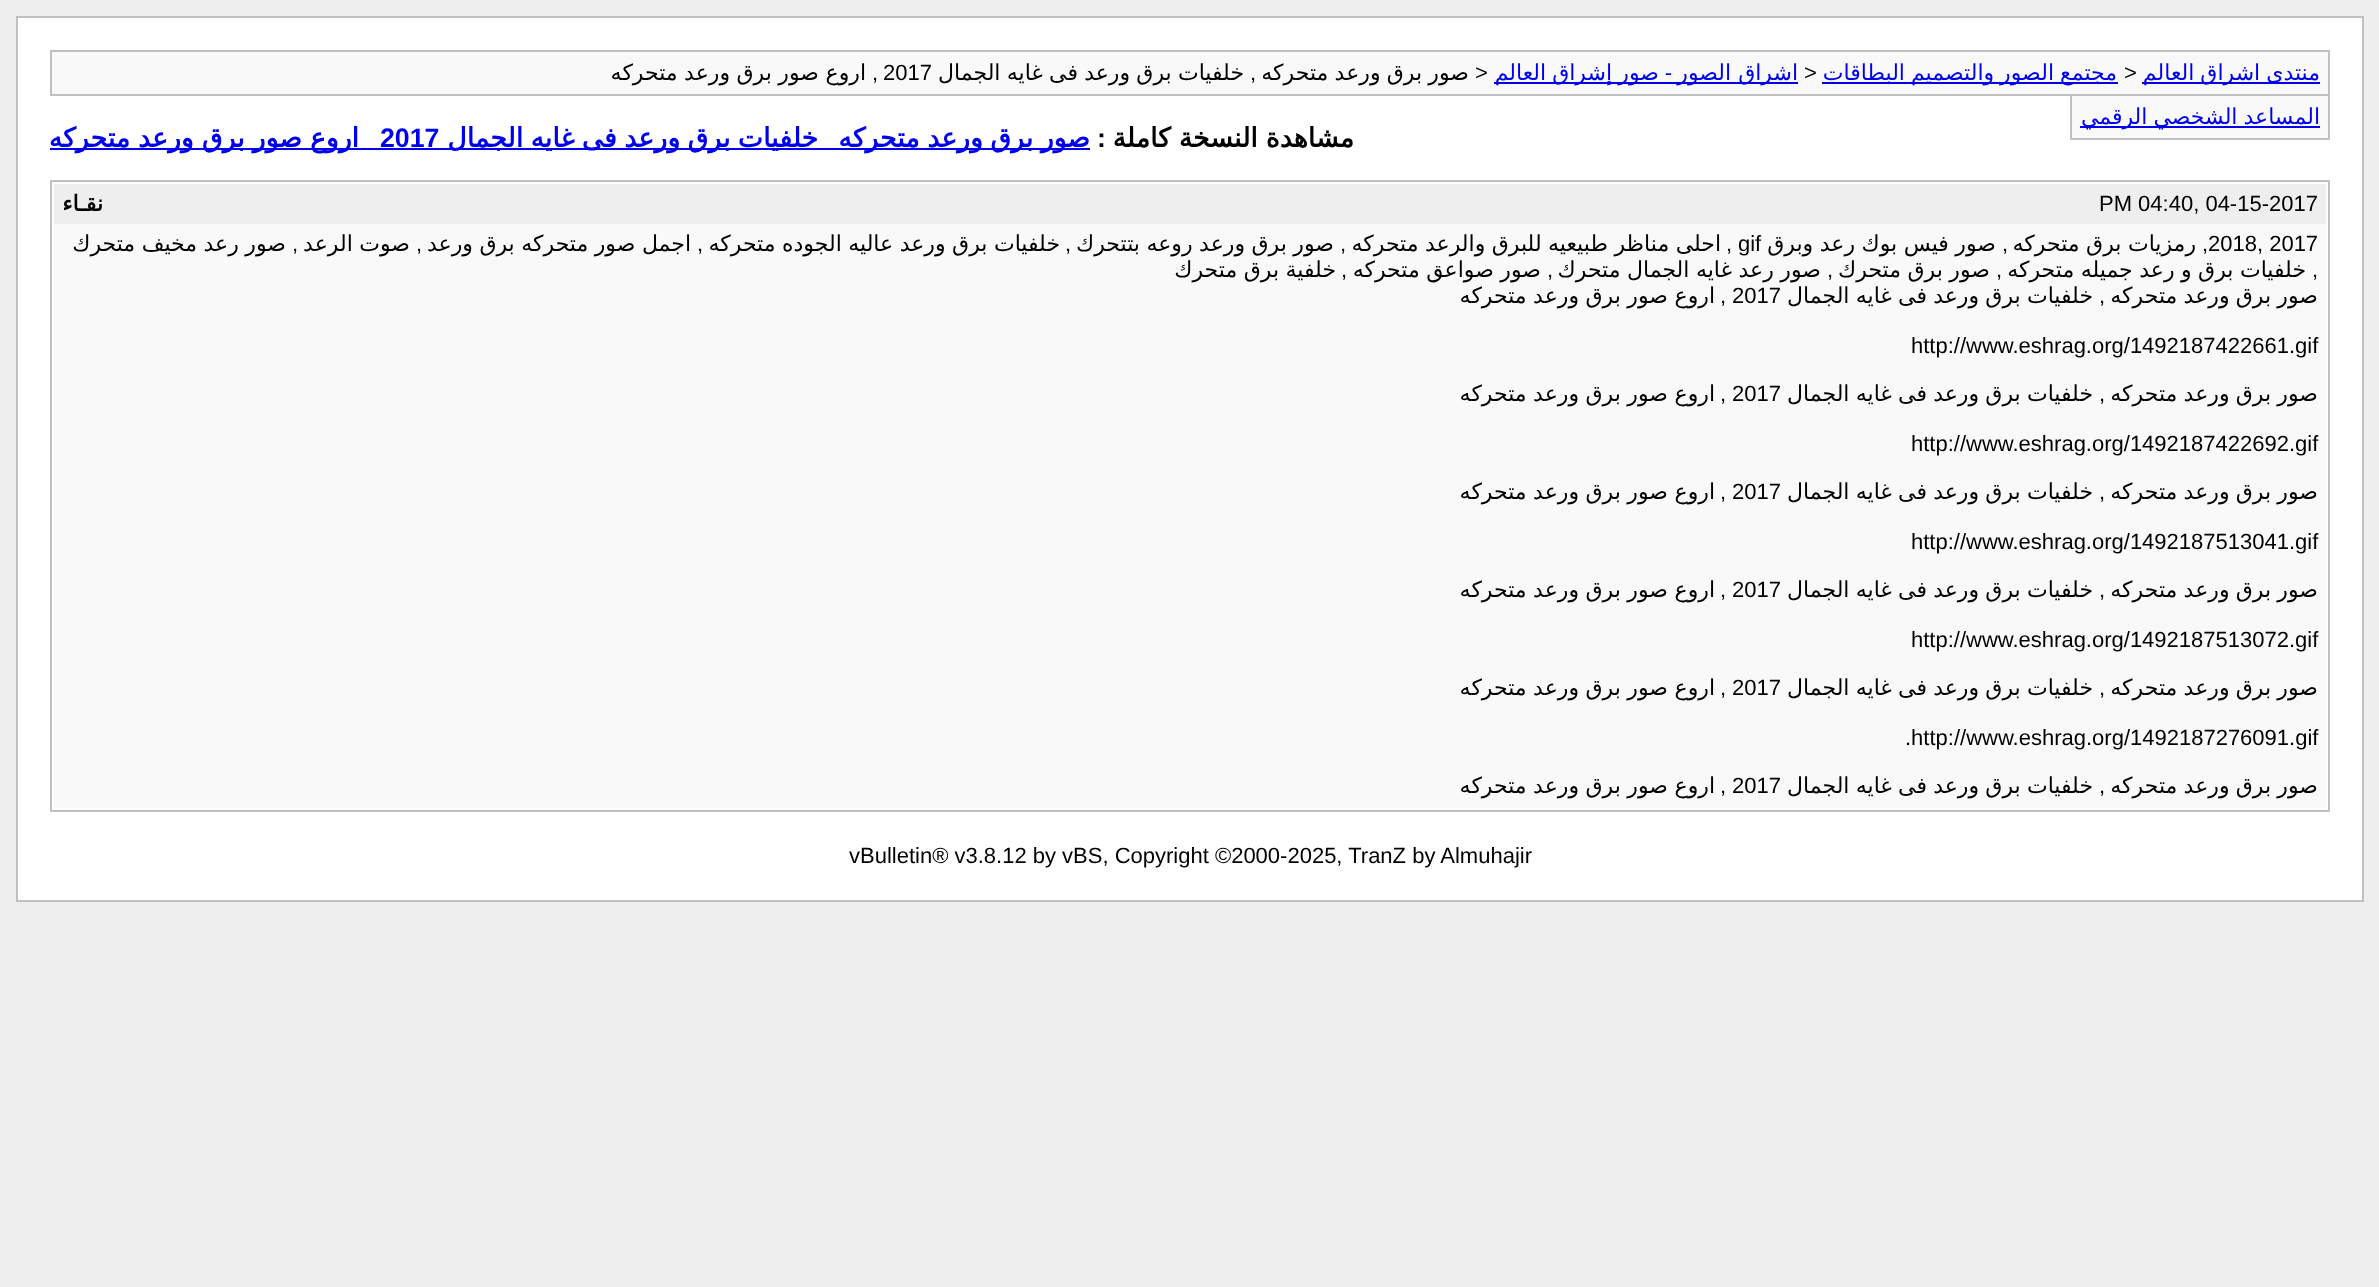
<!DOCTYPE html>
<meta charset="utf-8">
<style>body { margin: 0 } canvas { display: block }</style>
<canvas id="canvas" width="2379" height="1287"></canvas>
<script type="module">
  const canvas = document.getElementById("canvas");
  const g = canvas.getContext("2d");
  g.miterLimit = 4;
  g.fontKerning = "normal";
  function drawText(s, x, y, [font, color]) {
    g.font = font;
    g.fillStyle = color;
    g.fillText(s, x, y);
  }
  function fillBox(x, y, w, h, color) {
    g.fillStyle = color;
    g.fillRect(x, y, w, h);
  }

  const s1 = ["22px DejaVu Sans", "#0000EE"];
  const s2 = ["22px Liberation Sans", "#000000"];
  const s3 = ["22px Liberation Sans", "#0000EE"];
  const s4 = ["22px DejaVu Sans", "#000000"];
  const s5 = ["bold 26.7px DejaVu Sans", "#000000"];
  const s6 = ["bold 26.7px Liberation Sans", "#000000"];
  const s7 = ["bold 26.7px DejaVu Sans", "#0000EE"];
  const s8 = ["bold 26.7px Liberation Sans", "#0000EE"];
  const s9 = ["bold 22px DejaVu Sans", "#000000"];

  fillBox(0, 0, 2379, 1287, "#EEEEEE");
  g.fillStyle = "#FFFFFF";
  g.beginPath();
  g.rect(17, 17, 2346, 884);
  g.fill();
  g.strokeStyle = "#C0C0C0";
  g.lineWidth = 2;
  g.stroke();
  g.fillStyle = "#F9F9F9";
  g.beginPath();
  g.rect(51, 51, 2278, 44);
  g.fill();
  g.stroke();
  fillBox(2142, 82, 178, 2, "#0000EE");
  g.wordSpacing = "-1px";
  g.direction = "rtl";
  drawText("منتدى اشراق العالم", 2320, 80, s1);
  g.wordSpacing = "0px";
  g.direction = "ltr";
  drawText(">", 2124, 80, s2);
  fillBox(1822, 82, 296, 2, "#0000EE");
  g.direction = "rtl";
  drawText("مجتمع", 2117, 80, s1);
  g.wordSpacing = "-1px";
  drawText("الصور والتصميم البطاقات", 2054, 80, s1);
  g.wordSpacing = "0px";
  g.direction = "ltr";
  drawText(">", 1804, 80, s2);
  fillBox(1494, 82, 304, 2, "#0000EE");
  g.direction = "rtl";
  drawText("اشراق الصور", 1798, 80, s1);
  drawText("-", 1672, 80, s3);
  drawText("صور", 1659, 80, s1);
  g.wordSpacing = "-1px";
  drawText("إشراق العالم", 1612, 80, s1);
  g.wordSpacing = "0px";
  g.direction = "ltr";
  drawText(">", 1475, 80, s2);
  g.wordSpacing = "-0.75px";
  g.direction = "rtl";
  drawText("صور برق ورعد متحركه", 1469, 80, s4);
  drawText("خلفيات برق ورعد فى غايه الجمال", 1244, 80, s4);
  g.wordSpacing = "0px";
  g.direction = "ltr";
  drawText("2017", 883, 80, s2);
  g.wordSpacing = "-0.5px";
  g.direction = "rtl";
  drawText("اروع صور برق ورعد متحركه", 866, 80, s4);
  g.wordSpacing = "0px";
  drawText(",", 1256, 80, s2);
  drawText(",", 878, 80, s2);
  fillBox(2072, 96, 256, 42, "#F9F9F9");
  fillBox(2328, 96, 2, 44, "#C0C0C0");
  fillBox(2070, 138, 260, 2, "#C0C0C0");
  fillBox(2070, 96, 2, 44, "#C0C0C0");
  fillBox(2080, 126, 240, 2, "#0000EE");
  g.wordSpacing = "-1px";
  drawText("المساعد الشخصي الرقمي", 2320, 124, s1);
  g.wordSpacing = "-0.5px";
  drawText("مشاهدة النسخة كاملة", 1354, 147, s5);
  g.wordSpacing = "0px";
  drawText(":", 1106, 147, s6);
  fillBox(50, 148, 1040, 2, "#0000EE");
  g.wordSpacing = "-1px";
  drawText("صور برق ورعد متحركه", 1090, 147, s7);
  drawText("خلفيات برق ورعد فى غايه الجمال", 818, 147, s7);
  g.wordSpacing = "0px";
  g.direction = "ltr";
  drawText("2017", 380, 147, s8);
  g.wordSpacing = "-0.5px";
  g.direction = "rtl";
  drawText("اروع صور برق ورعد متحركه", 359, 147, s7);
  g.strokeRect(51, 181, 2278, 630);
  fillBox(54, 184, 2272, 40, "#EEEEEE");
  g.wordSpacing = "0px";
  g.direction = "ltr";
  drawText("PM 04:40, 04-15-2017", 2099, 211, s2);
  g.direction = "rtl";
  drawText("نقـاء", 103, 211, s9);
  fillBox(54, 224, 2272, 584, "#F9F9F9");
  g.direction = "ltr";
  drawText("2018, 2017", 2208, 251, s2);
  g.direction = "rtl";
  drawText(",", 2208, 251, s2);
  g.wordSpacing = "-0.5px";
  drawText("رمزيات برق متحركه", 2196, 251, s4);
  g.wordSpacing = "0px";
  drawText(",", 2008, 251, s2);
  g.wordSpacing = "-0.5px";
  drawText("صور فيس بوك رعد وبرق", 1996, 251, s4);
  g.wordSpacing = "0px";
  g.direction = "ltr";
  drawText("gif", 1738, 251, s2);
  g.direction = "rtl";
  drawText(",", 1732, 251, s2);
  g.wordSpacing = "-0.5px";
  drawText("احلى مناظر طبيعيه للبرق والرعد متحركه", 1721, 251, s4);
  g.wordSpacing = "0px";
  drawText(",", 1346, 251, s2);
  g.wordSpacing = "-0.5px";
  drawText("صور برق ورعد روعه بتتحرك", 1334, 251, s4);
  g.wordSpacing = "0px";
  drawText(",", 1071, 251, s2);
  g.wordSpacing = "-0.5px";
  drawText("خلفيات برق ورعد عاليه الجوده متحركه", 1060, 251, s4);
  g.wordSpacing = "0px";
  drawText(",", 703, 251, s2);
  g.wordSpacing = "-0.5px";
  drawText("اجمل صور متحركه برق ورعد", 691, 251, s4);
  g.wordSpacing = "0px";
  drawText(",", 422, 251, s2);
  g.wordSpacing = "-0.5px";
  drawText("صوت الرعد", 410, 251, s4);
  g.wordSpacing = "0px";
  drawText(",", 298, 251, s2);
  g.wordSpacing = "-0.5px";
  drawText("صور رعد مخيف متحرك", 286, 251, s4);
  g.wordSpacing = "0px";
  drawText(",", 2318, 277, s2);
  g.wordSpacing = "-0.5px";
  drawText("خلفيات برق و رعد جميله متحركه", 2306, 277, s4);
  g.wordSpacing = "0px";
  drawText(",", 2002, 277, s2);
  g.wordSpacing = "-0.5px";
  drawText("صور برق متحرك", 1990, 277, s4);
  g.wordSpacing = "0px";
  drawText(",", 1833, 277, s2);
  g.wordSpacing = "-0.5px";
  drawText("صور رعد غايه الجمال متحرك", 1821, 277, s4);
  g.wordSpacing = "0px";
  drawText(",", 1553, 277, s2);
  g.wordSpacing = "-0.5px";
  drawText("صور صواعق متحركه", 1541, 277, s4);
  g.wordSpacing = "0px";
  drawText(",", 1347, 277, s2);
  g.wordSpacing = "-0.5px";
  drawText("خلفية برق متحرك", 1336, 277, s4);
  g.wordSpacing = "-0.75px";
  drawText("صور برق ورعد متحركه", 2318, 303, s4);
  g.wordSpacing = "0px";
  drawText(",", 2105, 303, s2);
  g.wordSpacing = "-0.75px";
  drawText("خلفيات برق ورعد فى غايه الجمال", 2093, 303, s4);
  g.wordSpacing = "0px";
  g.direction = "ltr";
  drawText("2017", 1732, 303, s2);
  g.direction = "rtl";
  drawText(",", 1726, 303, s2);
  g.wordSpacing = "-0.5px";
  drawText("اروع صور برق ورعد متحركه", 1715, 303, s4);
  g.wordSpacing = "0px";
  g.direction = "ltr";
  drawText("http://www.eshrag.org/1492187422661.gif", 1911, 353, s2);
  g.wordSpacing = "-0.75px";
  g.direction = "rtl";
  drawText("صور برق ورعد متحركه", 2318, 401, s4);
  g.wordSpacing = "0px";
  drawText(",", 2105, 401, s2);
  g.wordSpacing = "-0.75px";
  drawText("خلفيات برق ورعد فى غايه الجمال", 2093, 401, s4);
  g.wordSpacing = "0px";
  g.direction = "ltr";
  drawText("2017", 1732, 401, s2);
  g.direction = "rtl";
  drawText(",", 1726, 401, s2);
  g.wordSpacing = "-0.5px";
  drawText("اروع صور برق ورعد متحركه", 1715, 401, s4);
  g.wordSpacing = "0px";
  g.direction = "ltr";
  drawText("http://www.eshrag.org/1492187422692.gif", 1911, 451, s2);
  g.wordSpacing = "-0.75px";
  g.direction = "rtl";
  drawText("صور برق ورعد متحركه", 2318, 499, s4);
  g.wordSpacing = "0px";
  drawText(",", 2105, 499, s2);
  g.wordSpacing = "-0.75px";
  drawText("خلفيات برق ورعد فى غايه الجمال", 2093, 499, s4);
  g.wordSpacing = "0px";
  g.direction = "ltr";
  drawText("2017", 1732, 499, s2);
  g.direction = "rtl";
  drawText(",", 1726, 499, s2);
  g.wordSpacing = "-0.5px";
  drawText("اروع صور برق ورعد متحركه", 1715, 499, s4);
  g.wordSpacing = "0px";
  g.direction = "ltr";
  drawText("http://www.eshrag.org/1492187513041.gif", 1911, 549, s2);
  g.wordSpacing = "-0.75px";
  g.direction = "rtl";
  drawText("صور برق ورعد متحركه", 2318, 597, s4);
  g.wordSpacing = "0px";
  drawText(",", 2105, 597, s2);
  g.wordSpacing = "-0.75px";
  drawText("خلفيات برق ورعد فى غايه الجمال", 2093, 597, s4);
  g.wordSpacing = "0px";
  g.direction = "ltr";
  drawText("2017", 1732, 597, s2);
  g.direction = "rtl";
  drawText(",", 1726, 597, s2);
  g.wordSpacing = "-0.5px";
  drawText("اروع صور برق ورعد متحركه", 1715, 597, s4);
  g.wordSpacing = "0px";
  g.direction = "ltr";
  drawText("http://www.eshrag.org/1492187513072.gif", 1911, 647, s2);
  g.wordSpacing = "-0.75px";
  g.direction = "rtl";
  drawText("صور برق ورعد متحركه", 2318, 695, s4);
  g.wordSpacing = "0px";
  drawText(",", 2105, 695, s2);
  g.wordSpacing = "-0.75px";
  drawText("خلفيات برق ورعد فى غايه الجمال", 2093, 695, s4);
  g.wordSpacing = "0px";
  g.direction = "ltr";
  drawText("2017", 1732, 695, s2);
  g.direction = "rtl";
  drawText(",", 1726, 695, s2);
  g.wordSpacing = "-0.5px";
  drawText("اروع صور برق ورعد متحركه", 1715, 695, s4);
  g.wordSpacing = "0px";
  g.direction = "ltr";
  drawText(".http://www.eshrag.org/1492187276091.gif", 1905, 745, s2);
  g.wordSpacing = "-0.75px";
  g.direction = "rtl";
  drawText("صور برق ورعد متحركه", 2318, 793, s4);
  g.wordSpacing = "0px";
  drawText(",", 2105, 793, s2);
  g.wordSpacing = "-0.75px";
  drawText("خلفيات برق ورعد فى غايه الجمال", 2093, 793, s4);
  g.wordSpacing = "0px";
  g.direction = "ltr";
  drawText("2017", 1732, 793, s2);
  g.direction = "rtl";
  drawText(",", 1726, 793, s2);
  g.wordSpacing = "-0.5px";
  drawText("اروع صور برق ورعد متحركه", 1715, 793, s4);
  g.wordSpacing = "0px";
  g.direction = "ltr";
  drawText("vBulletin® v3.8.12 by vBS, Copyright ©2000-2025, TranZ by Almuhajir", 849, 863, s2);
</script>
